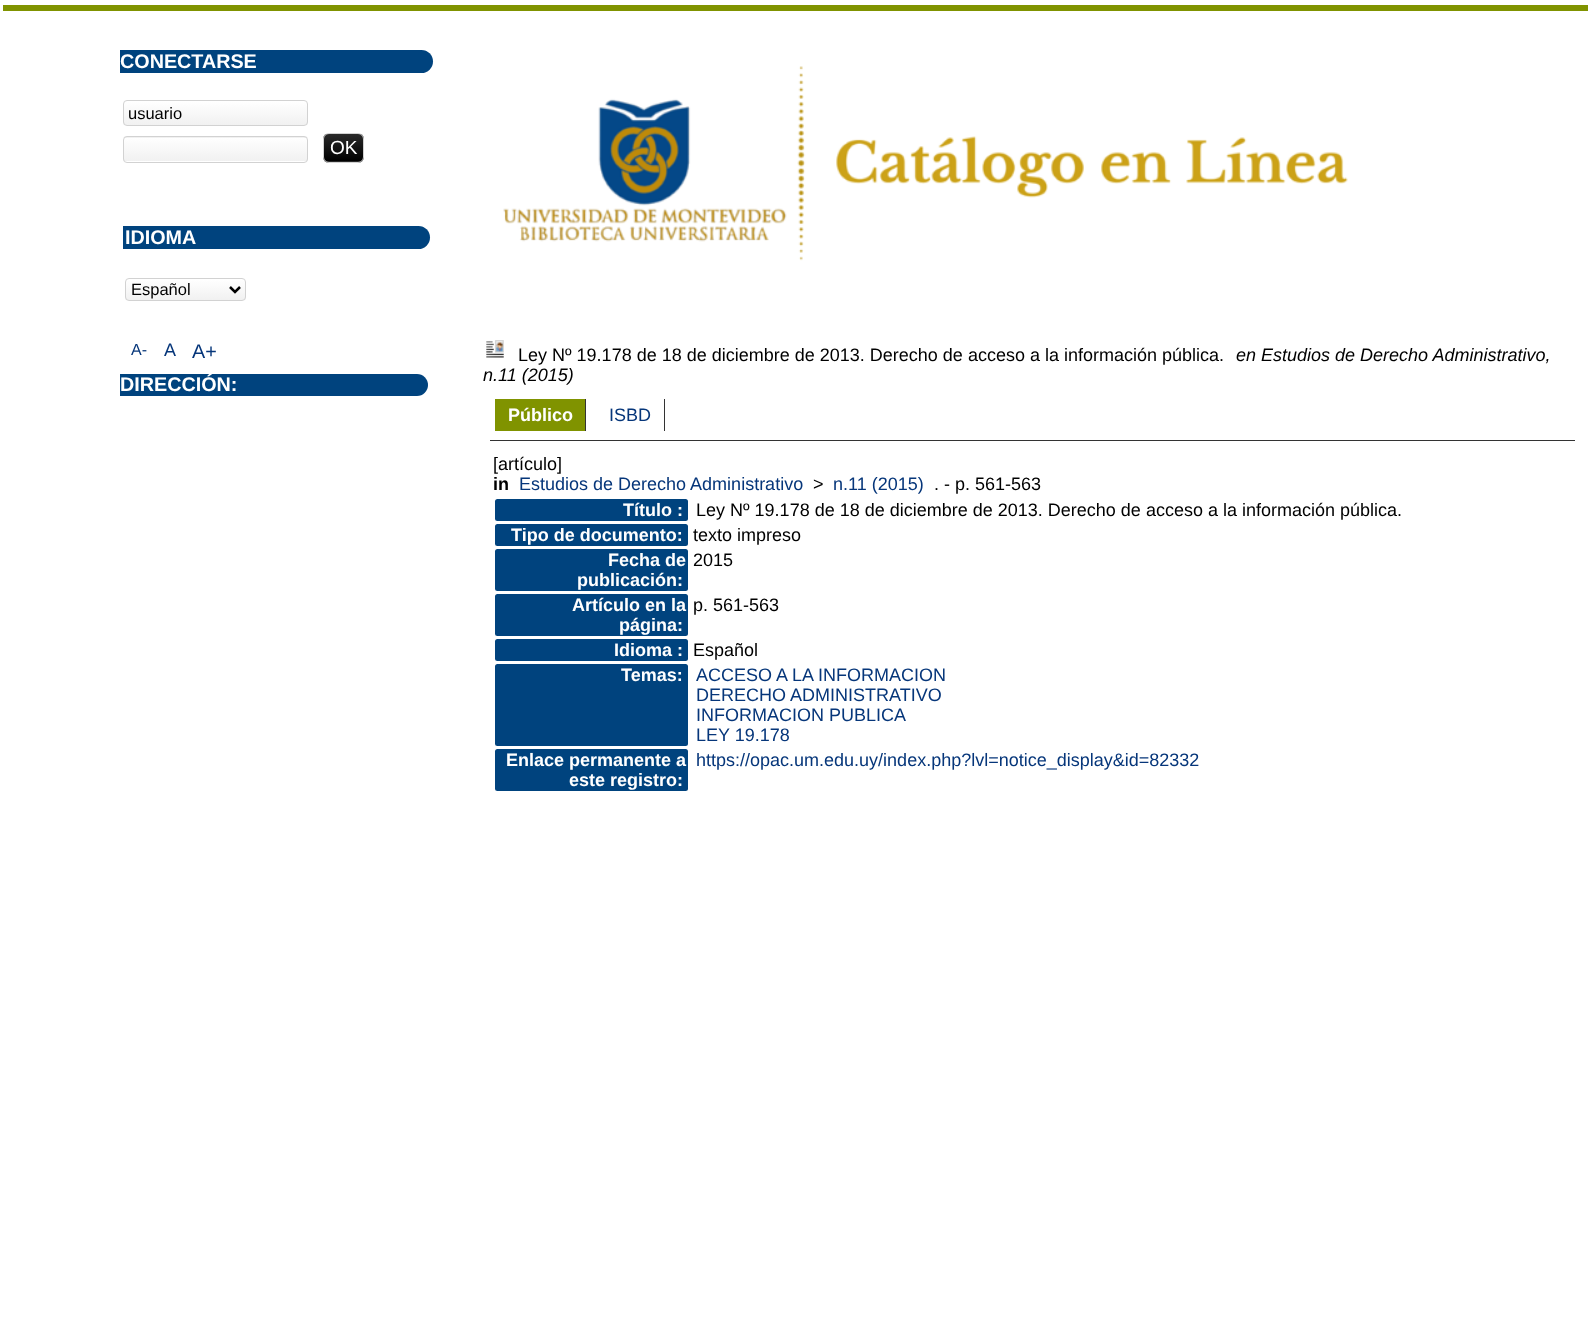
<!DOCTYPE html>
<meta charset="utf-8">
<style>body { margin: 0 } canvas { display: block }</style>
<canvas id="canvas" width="1590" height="1318"></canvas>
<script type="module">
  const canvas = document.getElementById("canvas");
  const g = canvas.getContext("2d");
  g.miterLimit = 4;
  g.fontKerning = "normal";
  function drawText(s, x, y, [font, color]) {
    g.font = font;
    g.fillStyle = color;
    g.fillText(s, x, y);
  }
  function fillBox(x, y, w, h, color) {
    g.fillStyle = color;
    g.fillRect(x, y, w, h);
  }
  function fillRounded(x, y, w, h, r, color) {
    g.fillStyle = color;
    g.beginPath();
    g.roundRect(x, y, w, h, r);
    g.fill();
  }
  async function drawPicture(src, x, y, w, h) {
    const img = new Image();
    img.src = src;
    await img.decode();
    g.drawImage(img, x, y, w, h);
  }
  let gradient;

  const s1 = ["bold 19.75px Liberation Sans", "#FFFFFF"];
  const s2 = ["16.5px Liberation Sans", "#000000"];
  const s3 = ["19px Liberation Sans", "#FFFFFF"];
  const s4 = ["16px Liberation Sans", "#06367A"];
  const s5 = ["18px Liberation Sans", "#06367A"];
  const s6 = ["19.75px Liberation Sans", "#06367A"];
  const s7 = ["18px Liberation Sans", "#000000"];
  const s8 = ["italic 18px Liberation Sans", "#000000"];
  const s9 = ["bold 18px Liberation Sans", "#FFFFFF"];
  const s10 = ["bold 18px Liberation Sans", "#000000"];

  fillBox(0, 0, 1590, 1318, "#FFFFFF");
  fillBox(3, 5, 1585, 6, "#809300");
  g.fillStyle = "#00437E";
  g.beginPath();
  g.roundRect(120, 50, 313, 23, [0, 11.5, 11.5, 0]);
  g.fill();
  drawText("CONECTARSE", 120, 68, s1);
  g.save();
  g.beginPath();
  g.roundRect(123, 100, 185, 26, 4);
  g.clip();
  gradient = g.createLinearGradient(215, 101, 215, 125);
  gradient.addColorStop(0.01, "#FFFFFF");
  gradient.addColorStop(1, "#F1F1F1");
  g.fillStyle = gradient;
  g.fillRect(123, 101, 185, 24);
  g.restore();
  g.beginPath();
  g.roundRect(123.5, 100.5, 184, 25, 3.5);
  g.strokeStyle = "#D2D2D2";
  g.stroke();
  drawText("usuario", 128, 119, s2);
  g.save();
  g.beginPath();
  g.roundRect(123, 136, 185, 27, 4);
  g.clip();
  gradient = g.createLinearGradient(215, 114, 215, 138);
  gradient.addColorStop(0.01, "#FFFFFF");
  gradient.addColorStop(1, "#F1F1F1");
  g.fillStyle = gradient;
  g.fillRect(123, 136, 185, 2);
  gradient = g.createLinearGradient(215, 137, 215, 161);
  gradient.addColorStop(0.01, "#FFFFFF");
  gradient.addColorStop(1, "#F1F1F1");
  g.fillStyle = gradient;
  g.fillRect(123, 138, 185, 23);
  g.restore();
  g.beginPath();
  g.roundRect(123.5, 136.5, 184, 26, 3.5);
  g.stroke();
  g.save();
  g.beginPath();
  g.roundRect(323, 133, 41, 30, 6);
  g.clip();
  gradient = g.createLinearGradient(343, 134, 343, 161);
  gradient.addColorStop(0, "#2A2A2A");
  gradient.addColorStop(1, "#000000");
  g.fillStyle = gradient;
  g.fillRect(323, 134, 41, 27);
  gradient = g.createLinearGradient(343, 161, 343, 189);
  gradient.addColorStop(0, "#2A2A2A");
  gradient.addColorStop(1, "#000000");
  g.fillStyle = gradient;
  g.fillRect(323, 161, 41, 2);
  g.restore();
  g.beginPath();
  g.roundRect(323.5, 133.5, 40, 29, 5.5);
  g.stroke();
  drawText("OK", 330, 154, s3);
  g.fillStyle = "#00437E";
  g.beginPath();
  g.roundRect(123, 226, 307, 23, [0, 11.5, 11.5, 0]);
  g.fill();
  drawText("IDIOMA", 125, 244, s1);
  g.save();
  g.beginPath();
  g.roundRect(125, 278, 121, 23, 4);
  g.clip();
  gradient = g.createLinearGradient(186, 279, 186, 300);
  gradient.addColorStop(0.01, "#FFFFFF");
  gradient.addColorStop(1, "#F1F1F1");
  g.fillStyle = gradient;
  g.fillRect(125, 279, 121, 21);
  g.restore();
  g.beginPath();
  g.roundRect(125.5, 278.5, 120, 22, 3.5);
  g.stroke();
  g.beginPath();
  g.moveTo(230, 287);
  g.lineTo(235, 292);
  g.lineTo(240, 287);
  g.strokeStyle = "#000000";
  g.lineWidth = 2.5;
  g.stroke();
  drawText("Español", 131, 295, s2);
  drawText("A-", 131, 355, s4);
  drawText("A", 164, 356, s5);
  drawText("A+", 192, 358, s6);
  g.fillStyle = "#00437E";
  g.beginPath();
  g.roundRect(120, 374, 308, 22, [0, 11, 11, 0]);
  g.fill();
  drawText("DIRECCIÓN:", 120, 391, s1);
  await drawPicture("pic1.png", 503, 66, 845, 195);
  await drawPicture("pic2.png", 486, 340, 18, 18);
  drawText("Ley Nº 19.178 de 18 de diciembre de 2013. Derecho de acceso a la información pública.", 518, 361, s7);
  drawText("en Estudios de Derecho Administrativo,", 1236, 361, s8);
  drawText("n.11 (2015)", 483, 381, s8);
  fillBox(490, 440, 1085, 1, "#333333");
  fillBox(495, 399, 90, 32, "#809300");
  drawText("Público", 508, 421, s9);
  fillBox(585, 399, 1, 32, "#333333");
  drawText("ISBD", 609, 421, s5);
  fillBox(664, 399, 1, 32, "#333333");
  drawText("[artículo]", 493, 470, s7);
  drawText("in", 493, 490, s10);
  drawText("Estudios de Derecho Administrativo", 519, 490, s5);
  drawText(">", 813, 490, s7);
  drawText("n.11 (2015)", 833, 490, s5);
  drawText(". - p. 561-563", 934, 490, s7);
  fillRounded(495, 499, 193, 22, 2.5, "#00437E");
  drawText("Título :", 623, 516, s9);
  drawText("Ley Nº 19.178 de 18 de diciembre de 2013. Derecho de acceso a la información pública.", 696, 516, s7);
  fillRounded(495, 524, 193, 22, 2.5, "#00437E");
  drawText("Tipo de documento:", 511, 541, s9);
  drawText("texto impreso", 693, 541, s7);
  fillRounded(495, 549, 193, 42, 2.5, "#00437E");
  drawText("Fecha de", 608, 566, s9);
  drawText("publicación:", 577, 586, s9);
  drawText("2015", 693, 566, s7);
  fillRounded(495, 594, 193, 42, 2.5, "#00437E");
  drawText("Artículo en la", 572, 611, s9);
  drawText("página:", 619, 631, s9);
  drawText("p. 561-563", 693, 611, s7);
  fillRounded(495, 639, 193, 22, 2.5, "#00437E");
  drawText("Idioma :", 614, 656, s9);
  drawText("Español", 693, 656, s7);
  fillRounded(495, 664, 193, 82, 2.5, "#00437E");
  drawText("Temas:", 621, 681, s9);
  drawText("ACCESO A LA INFORMACION", 696, 681, s5);
  drawText("DERECHO ADMINISTRATIVO", 696, 701, s5);
  drawText("INFORMACION PUBLICA", 696, 721, s5);
  drawText("LEY 19.178", 696, 741, s5);
  fillRounded(495, 749, 193, 42, 2.5, "#00437E");
  drawText("Enlace permanente a", 506, 766, s9);
  drawText("este registro:", 569, 786, s9);
  drawText("https://opac.um.edu.uy/index.php?lvl=notice_display&id=82332", 696, 766, s5);
</script>
